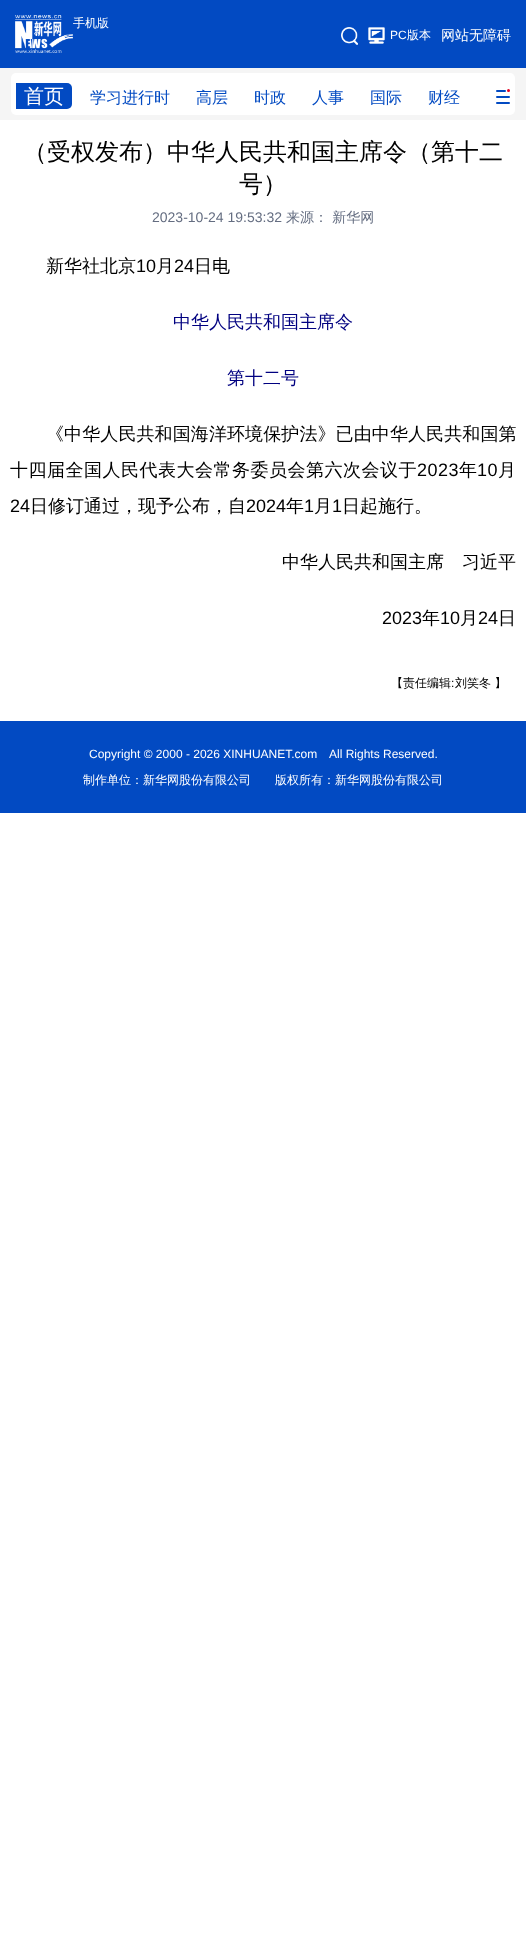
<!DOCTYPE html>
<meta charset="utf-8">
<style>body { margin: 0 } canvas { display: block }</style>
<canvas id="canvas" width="526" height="1958"></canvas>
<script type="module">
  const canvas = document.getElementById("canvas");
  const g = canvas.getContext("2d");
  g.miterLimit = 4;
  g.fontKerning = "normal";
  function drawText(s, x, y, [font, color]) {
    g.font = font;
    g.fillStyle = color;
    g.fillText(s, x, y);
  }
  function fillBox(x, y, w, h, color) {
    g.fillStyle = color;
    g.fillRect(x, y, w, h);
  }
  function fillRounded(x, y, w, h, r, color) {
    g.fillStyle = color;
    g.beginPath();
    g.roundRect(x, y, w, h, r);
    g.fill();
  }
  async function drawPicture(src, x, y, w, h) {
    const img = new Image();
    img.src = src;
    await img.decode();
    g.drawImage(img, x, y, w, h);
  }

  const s1 = ["500 12px WenQuanYi Zen Hei", "#FFFFFF"];
  const s2 = ["12px Liberation Sans", "#FFFFFF"];
  const s3 = ["500 14px WenQuanYi Zen Hei", "#FFFFFF"];
  const s4 = ["500 20px WenQuanYi Zen Hei", "#FFFFFF"];
  const s5 = ["500 16px WenQuanYi Zen Hei", "#024AC2"];
  const s6 = ["500 24px WenQuanYi Zen Hei", "#000000"];
  const s7 = ["14px Liberation Sans", "#646D81"];
  const s8 = ["500 14px WenQuanYi Zen Hei", "#646D81"];
  const s9 = ["500 18px WenQuanYi Zen Hei", "#000000"];
  const s10 = ["18px Liberation Sans", "#000000"];
  const s11 = ["500 18px WenQuanYi Zen Hei", "#000080"];
  const s12 = ["500 12px WenQuanYi Zen Hei", "#000000"];
  const s13 = ["12px Liberation Sans", "#000000"];

  fillBox(0, 0, 526, 1958, "#FFFFFF");
  fillBox(0, 0, 526, 68, "#024AC2");
  await drawPicture("pic1.png", 15, 15, 58, 38);
  drawText("手机版", 73, 27, s1);
  await drawPicture("pic2.png", 341, 27, 17, 18);
  await drawPicture("pic3.png", 368, 27, 17, 17);
  drawText("PC", 390, 39, s2);
  drawText("版本", 407, 39, s1);
  drawText("网站无障碍", 441, 40, s3);
  fillBox(0, 68, 526, 52, "#F5F5F5");
  fillRounded(11, 73, 504, 42, 5, "#FFFFFF");
  g.fillStyle = "#024AC2";
  g.beginPath();
  g.roundRect(16, 83, 56, 26, [0, 5, 5, 0]);
  g.fill();
  drawText("首页", 24, 103, s4);
  drawText("学习进行时", 90, 103, s5);
  drawText("高层", 196, 103, s5);
  drawText("时政", 254, 103, s5);
  drawText("人事", 312, 103, s5);
  drawText("国际", 370, 103, s5);
  drawText("财经", 428, 103, s5);
  fillRounded(496, 90, 10, 2, 1, "#024AC2");
  g.fillStyle = "#E50020";
  g.beginPath();
  g.arc(508.5, 90.5, 1.5, 0, Math.PI * 2);
  g.fill();
  fillRounded(496, 96, 14, 2, 1, "#024AC2");
  fillRounded(496, 102, 14, 2, 1, "#024AC2");
  drawText("（受权发布）中华人民共和国主席令（第十二", 23, 160, s6);
  drawText("号）", 239, 192, s6);
  drawText("2023-10-24 19:53:32", 152, 222, s7);
  drawText("来源： 新华网", 286, 222, s8);
  drawText("新华社北京", 46, 272, s9);
  drawText("10", 136, 272, s10);
  drawText("月", 156, 272, s9);
  drawText("24", 174, 272, s10);
  drawText("日电", 194, 272, s9);
  drawText("中华人民共和国主席令", 173, 328, s11);
  drawText("第十二号", 227, 384, s11);
  g.letterSpacing = "0.1px";
  drawText("《中华人民共和国海洋环境保护法》已由中华人民共和国第", 46, 440, s9);
  g.letterSpacing = "0.5px";
  drawText("十四届全国人民代表大会常务委员会第六次会议于", 10, 476, s9);
  drawText("2023", 417, 476, s10);
  drawText("年", 459, 476, s9);
  drawText("10", 477, 476, s10);
  drawText("月", 498, 476, s9);
  g.letterSpacing = "0px";
  drawText("24", 10, 512, s10);
  drawText("日修订通过，现予公布，自", 30, 512, s9);
  drawText("2024", 246, 512, s10);
  drawText("年", 286, 512, s9);
  drawText("1", 304, 512, s10);
  drawText("月", 314, 512, s9);
  drawText("1", 332, 512, s10);
  drawText("日起施行。", 342, 512, s9);
  drawText("中华人民共和国主席　习近平", 282, 568, s9);
  drawText("2023", 382, 624, s10);
  drawText("年", 422, 624, s9);
  drawText("10", 440, 624, s10);
  drawText("月", 460, 624, s9);
  drawText("24", 478, 624, s10);
  drawText("日", 498, 624, s9);
  drawText("【责任编辑", 391, 687, s12);
  drawText(":", 451, 687, s13);
  drawText("刘笑冬 】", 455, 687, s12);
  fillBox(0, 721, 526, 92, "#024AC2");
  drawText("Copyright © 2000 - 2026 XINHUANET.com", 89, 758, s2);
  drawText("All Rights Reserved.", 329, 758, s2);
  drawText("制作单位：新华网股份有限公司　　版权所有：新华网股份有限公司", 83, 784, s1);
</script>
